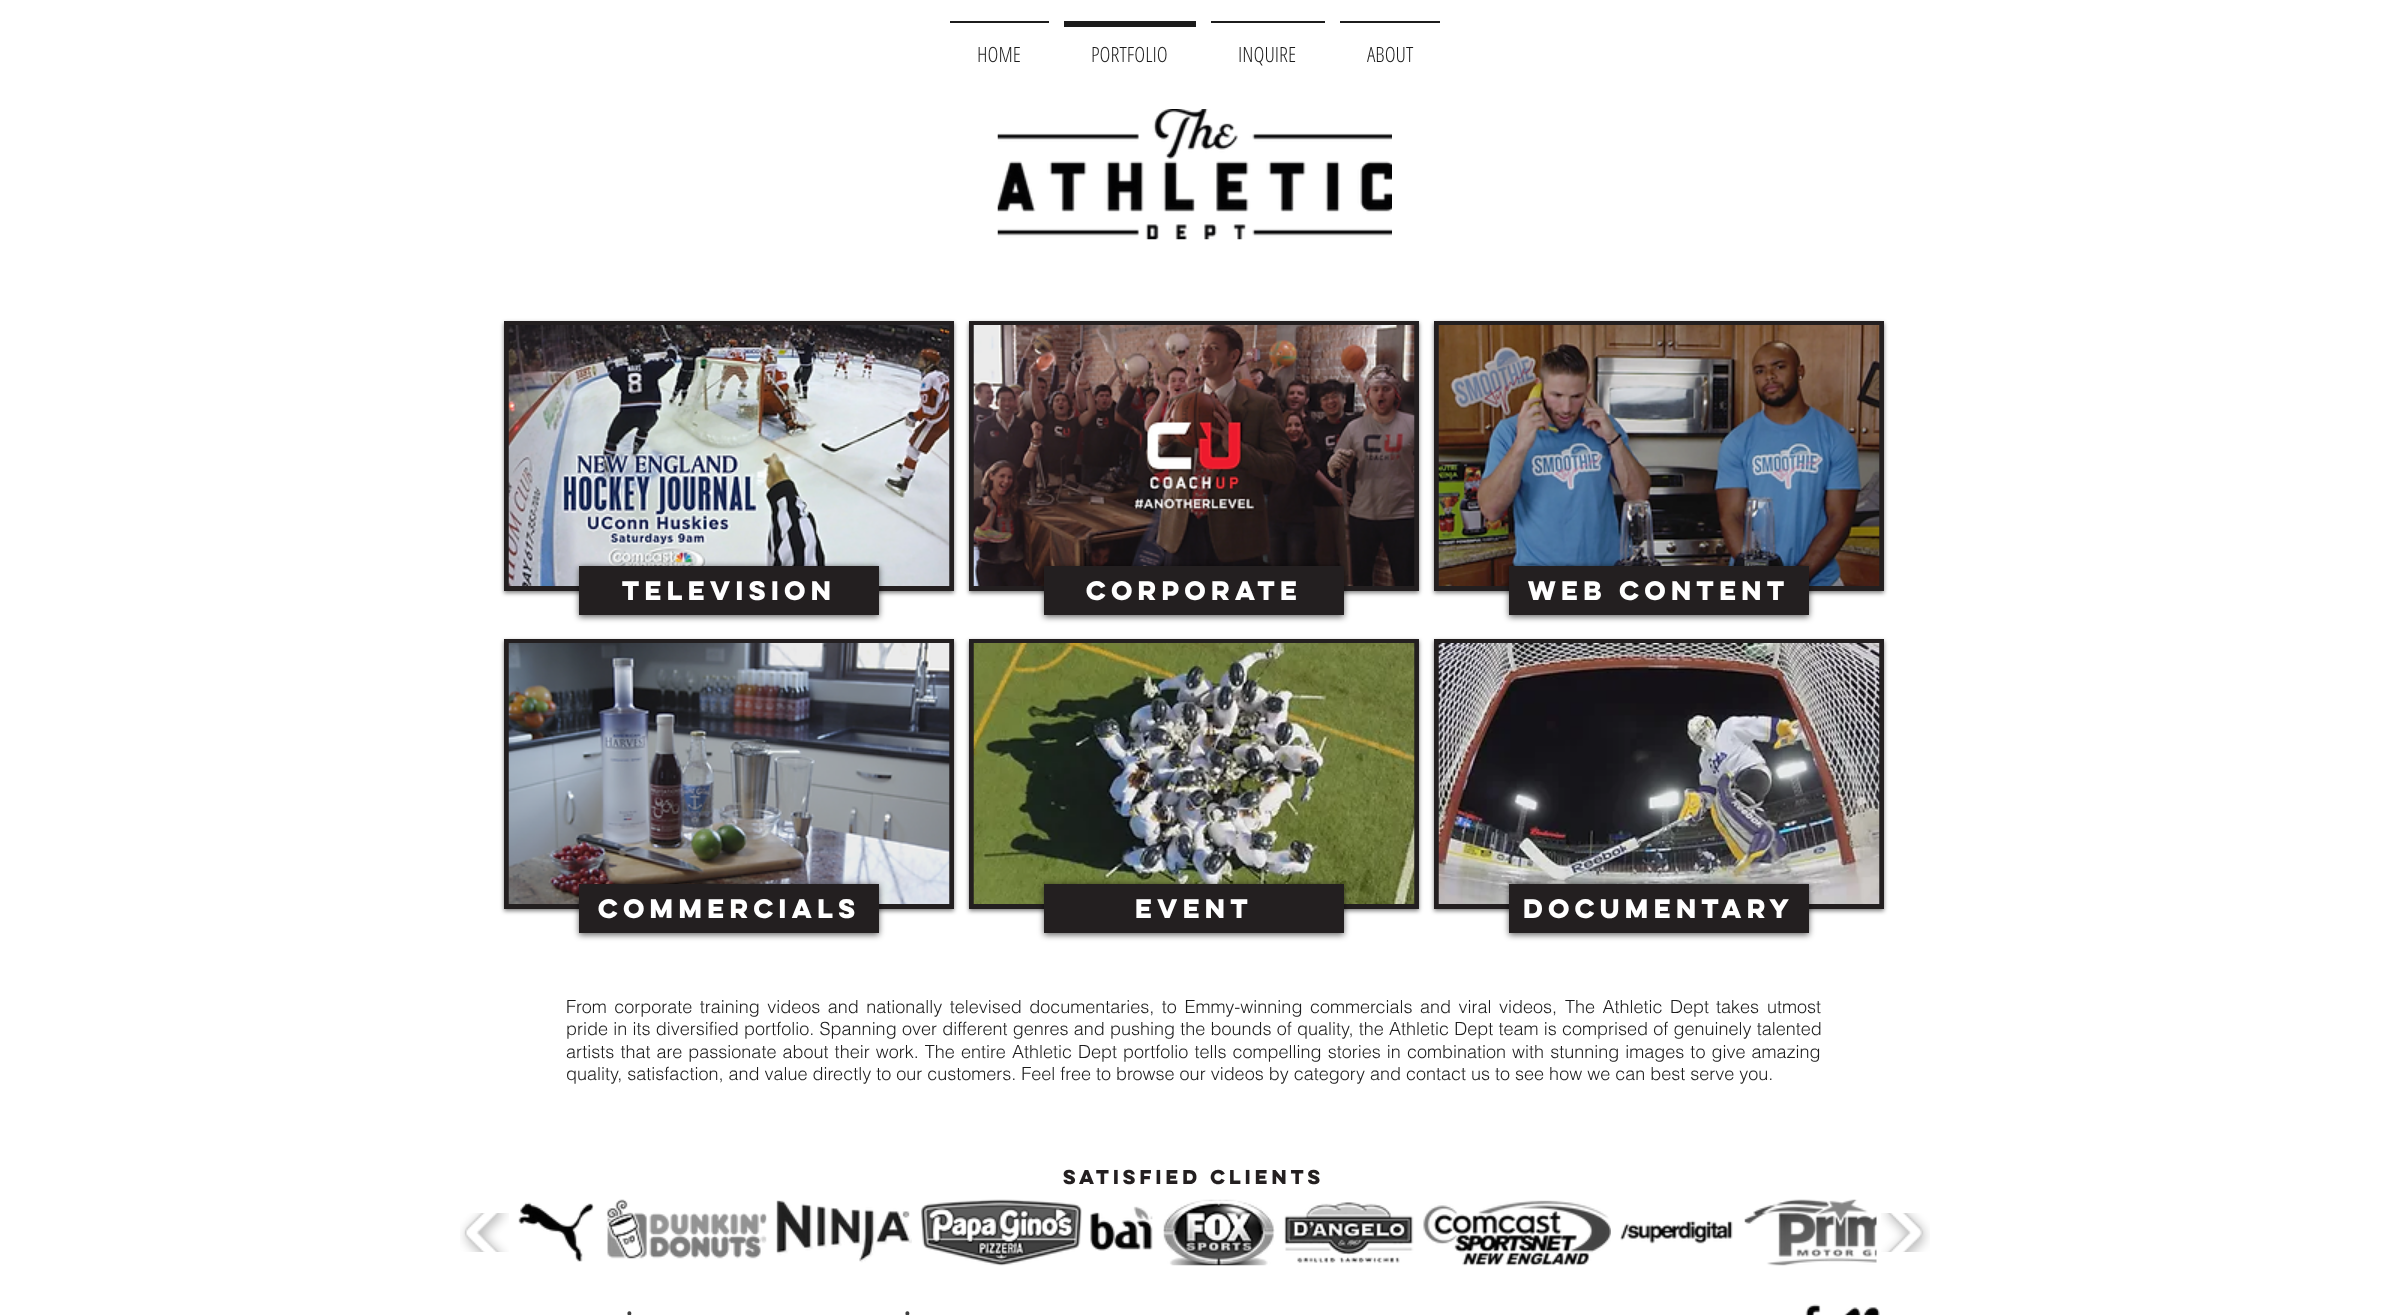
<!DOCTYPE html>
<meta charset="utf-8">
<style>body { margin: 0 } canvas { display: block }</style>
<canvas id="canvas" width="2387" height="1315"></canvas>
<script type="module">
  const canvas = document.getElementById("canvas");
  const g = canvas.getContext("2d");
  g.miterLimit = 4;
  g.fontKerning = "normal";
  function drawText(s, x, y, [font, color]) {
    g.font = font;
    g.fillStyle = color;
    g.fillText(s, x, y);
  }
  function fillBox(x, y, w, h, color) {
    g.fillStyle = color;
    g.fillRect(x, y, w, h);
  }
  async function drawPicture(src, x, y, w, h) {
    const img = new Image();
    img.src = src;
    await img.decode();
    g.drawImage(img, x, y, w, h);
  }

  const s1 = ["300 21px Open Sans Condensed", "#1C1C1C"];
  const s2 = ["bold 24px 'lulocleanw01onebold'", "#FFFFFF"];
  const s3 = ["300 18px helvetica", "#1C1C1C"];
  const s4 = ["bold 18px 'lulocleanw01onebold'", "#231F20"];
  const s5 = ["18px Open Sans", "#3E3E3E"];

  fillBox(0, 0, 2387, 1315, "#FFFFFF");
  fillBox(950, 21, 99, 2, "#1C1C1C");
  drawText("HOME", 977, 62, s1);
  fillBox(1064, 21, 132, 6, "#1C1C1C");
  drawText("PORTFOLIO", 1091, 62, s1);
  fillBox(1211, 21, 114, 2, "#1C1C1C");
  drawText("INQUIRE", 1238, 62, s1);
  fillBox(1340, 21, 100, 2, "#1C1C1C");
  drawText("ABOUT", 1367, 62, s1);
  await drawPicture("pic1.png", 997, 109, 395, 131);
  g.fillStyle = "rgba(0, 0, 0, 0.5)";
  g.filter = "blur(2px)";
  g.beginPath();
  g.rect(504, 323, 450, 270);
  g.fill();
  g.filter = "none";
  fillBox(504, 321, 450, 270, "#231F20");
  await drawPicture("pic2.png", 508, 325, 442, 261);
  g.fillStyle = "rgba(0, 0, 0, 0.5)";
  g.filter = "blur(2px)";
  g.beginPath();
  g.rect(969, 323, 450, 270);
  g.fill();
  g.filter = "none";
  fillBox(969, 321, 450, 270, "#231F20");
  await drawPicture("pic3.png", 973, 325, 442, 261);
  g.fillStyle = "rgba(0, 0, 0, 0.5)";
  g.filter = "blur(2px)";
  g.beginPath();
  g.rect(1434, 323, 450, 270);
  g.fill();
  g.filter = "none";
  fillBox(1434, 321, 450, 270, "#231F20");
  await drawPicture("pic4.png", 1438, 325, 442, 261);
  g.fillStyle = "rgba(0, 0, 0, 0.6)";
  g.filter = "blur(3px)";
  g.beginPath();
  g.rect(579, 567, 300, 50);
  g.fill();
  g.filter = "none";
  fillBox(579, 566, 300, 49, "#231F20");
  drawText("Television", 622, 600, s2);
  g.fillStyle = "rgba(0, 0, 0, 0.6)";
  g.filter = "blur(3px)";
  g.beginPath();
  g.rect(1044, 567, 300, 50);
  g.fill();
  g.filter = "none";
  fillBox(1044, 566, 300, 49, "#231F20");
  drawText("Corporate", 1086, 600, s2);
  g.fillStyle = "rgba(0, 0, 0, 0.6)";
  g.filter = "blur(3px)";
  g.beginPath();
  g.rect(1509, 567, 300, 50);
  g.fill();
  g.filter = "none";
  fillBox(1509, 566, 300, 49, "#231F20");
  drawText("Web Content", 1528, 600, s2);
  g.fillStyle = "rgba(0, 0, 0, 0.5)";
  g.filter = "blur(2px)";
  g.beginPath();
  g.rect(504, 641, 450, 270);
  g.fill();
  g.filter = "none";
  fillBox(504, 639, 450, 270, "#231F20");
  await drawPicture("pic5.png", 508, 643, 442, 261);
  g.fillStyle = "rgba(0, 0, 0, 0.5)";
  g.filter = "blur(2px)";
  g.beginPath();
  g.rect(969, 641, 450, 270);
  g.fill();
  g.filter = "none";
  fillBox(969, 639, 450, 270, "#231F20");
  await drawPicture("pic6.png", 973, 643, 442, 261);
  g.fillStyle = "rgba(0, 0, 0, 0.5)";
  g.filter = "blur(2px)";
  g.beginPath();
  g.rect(1434, 641, 450, 270);
  g.fill();
  g.filter = "none";
  fillBox(1434, 639, 450, 270, "#231F20");
  await drawPicture("pic7.png", 1438, 643, 442, 261);
  g.fillStyle = "rgba(0, 0, 0, 0.6)";
  g.filter = "blur(3px)";
  g.beginPath();
  g.rect(579, 885, 300, 50);
  g.fill();
  g.filter = "none";
  fillBox(579, 884, 300, 49, "#231F20");
  drawText("Commercials", 598, 918, s2);
  g.fillStyle = "rgba(0, 0, 0, 0.6)";
  g.filter = "blur(3px)";
  g.beginPath();
  g.rect(1044, 885, 300, 50);
  g.fill();
  g.filter = "none";
  fillBox(1044, 884, 300, 49, "#231F20");
  drawText("Event", 1135, 918, s2);
  g.fillStyle = "rgba(0, 0, 0, 0.6)";
  g.filter = "blur(3px)";
  g.beginPath();
  g.rect(1509, 885, 300, 50);
  g.fill();
  g.filter = "none";
  fillBox(1509, 884, 300, 49, "#231F20");
  drawText("Documentary", 1523, 918, s2);
  g.wordSpacing = "2.5px";
  drawText("From corporate training videos and nationally televised documentaries, to Emmy-winning commercials and viral videos,", 566, 1013, s3);
  drawText("The Athletic Dept", 1565, 1013, s3);
  g.wordSpacing = "3px";
  drawText("takes utmost", 1716, 1013, s3);
  g.wordSpacing = "0.25px";
  drawText("pride in its diversified portfolio. Spanning over different genres and pushing the bounds of quality, the Athletic Dept team is comprised of genuinely talented", 566, 1035, s3);
  g.wordSpacing = "1.1px";
  drawText("artists that are passionate about their work. The entire", 566, 1058, s3);
  g.wordSpacing = "1px";
  drawText("Athletic Dept", 1012, 1058, s3);
  g.wordSpacing = "1.1px";
  drawText("portfolio tells compelling stories in combination with stunning images to give amazing", 1123, 1058, s3);
  g.wordSpacing = "0px";
  drawText("quality, satisfaction, and value directly to our customers. Feel free to browse our videos by category and contact us to see how we can best serve you.", 566, 1080, s3);
  drawText("Satisfied Clients", 1063, 1184, s4);
  await drawPicture("pic8.png", 460, 1213, 49, 39);
  await drawPicture("pic9.png", 518, 1202, 76, 60);
  await drawPicture("pic10.png", 606, 1199, 161, 60);
  await drawPicture("pic11.png", 776, 1200, 136, 63);
  await drawPicture("pic12.png", 921, 1199, 161, 67);
  await drawPicture("pic13.png", 1090, 1206, 63, 45);
  await drawPicture("pic14.png", 1163, 1199, 112, 67);
  await drawPicture("pic15.png", 1284, 1202, 130, 61);
  await drawPicture("pic16.png", 1423, 1200, 188, 66);
  await drawPicture("pic17.png", 1620, 1220, 113, 24);
  await drawPicture("pic18.png", 1744, 1199, 133, 67);
  await drawPicture("pic19.png", 1881, 1213, 49, 39);
  drawText("•", 626, 1320, s5);
  drawText("•", 904, 1320, s5);
  await drawPicture("pic20.png", 1805, 1304, 16, 11);
  await drawPicture("pic21.png", 1844, 1307, 36, 8);
</script>
